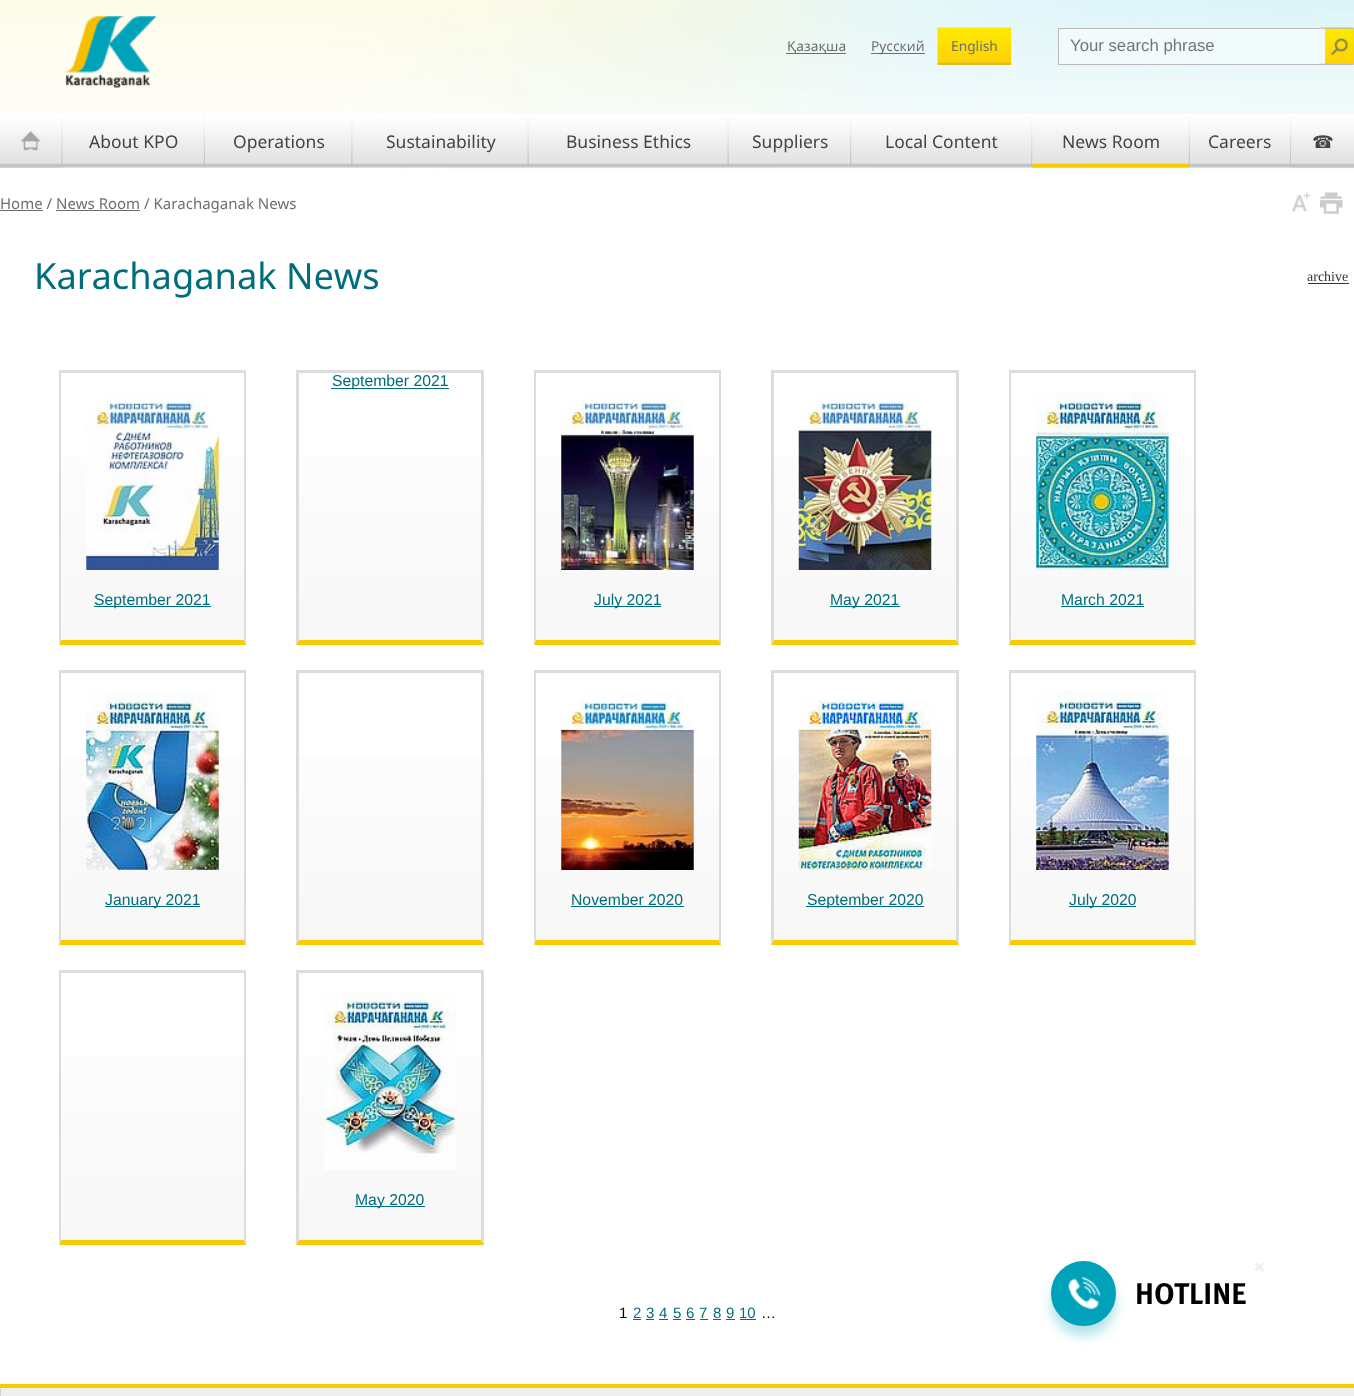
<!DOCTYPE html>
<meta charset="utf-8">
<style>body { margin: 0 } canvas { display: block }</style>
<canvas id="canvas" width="1354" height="1396"></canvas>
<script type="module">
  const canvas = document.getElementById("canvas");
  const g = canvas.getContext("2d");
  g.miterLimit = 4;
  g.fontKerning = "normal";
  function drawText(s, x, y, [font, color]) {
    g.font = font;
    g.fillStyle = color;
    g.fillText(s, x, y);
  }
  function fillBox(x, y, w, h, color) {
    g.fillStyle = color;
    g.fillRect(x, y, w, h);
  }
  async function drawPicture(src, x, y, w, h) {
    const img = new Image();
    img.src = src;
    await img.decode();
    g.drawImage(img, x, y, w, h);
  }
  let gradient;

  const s1 = ["13.75px Noto Sans", "#6E6E6E"];
  const s2 = ["16.75px Liberation Sans", "#757575"];
  const s3 = ["17.5px Noto Sans", "#444444"];
  const s4 = ["17.5px DejaVu Sans", "#444444"];
  const s5 = ["15px Noto Sans", "#6E6E6E"];
  const s6 = ["36.25px Noto Sans", "#006D7C"];
  const s7 = ["14px Liberation Serif", "#333333"];
  const s8 = ["15.75px Liberation Sans", "#006D7C"];
  const s9 = ["15px Liberation Sans", "#000000"];
  const s10 = ["15px Liberation Sans", "#006D7C"];
  const s11 = ["bold 20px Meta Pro", "#EEEFEF"];
  const s12 = ["bold 30px Meta Pro", "#000000"];

  fillBox(0, 0, 1354, 1396, "#FFFFFF");
  await drawPicture("pic1.png", 0, 0, 1354, 171);
  await drawPicture("pic2.png", 64, 16, 93, 72);
  fillBox(786, 53, 60, 1, "#6E6E6E");
  drawText("Қазақша", 787, 51, s1);
  fillBox(871, 53, 54, 1, "#6E6E6E");
  drawText("Русский", 871, 51, s1);
  await drawPicture("pic3.png", 937, 27, 75, 38);
  drawText("English", 951, 51, s1);
  fillBox(1059, 29, 261, 35, "#F2FBFC");
  fillBox(1058, 28, 262, 1, "#BBBBBB");
  fillBox(1058, 64, 262, 1, "#BBBBBB");
  fillBox(1058, 28, 1, 37, "#BBBBBB");
  drawText("Your search phrase", 1070, 51, s2);
  await drawPicture("pic4.png", 1320, 27, 34, 38);
  await drawPicture("pic5.png", 0, 114, 1354, 54);
  await drawPicture("pic6.png", 0, 119, 63, 49);
  await drawPicture("pic7.png", 203, 116, 2, 52);
  drawText("About KPO", 89, 148, s3);
  await drawPicture("pic8.png", 351, 116, 2, 52);
  drawText("Operations", 233, 148, s3);
  await drawPicture("pic9.png", 527, 116, 2, 52);
  drawText("Sustainability", 386, 148, s3);
  await drawPicture("pic10.png", 727, 116, 2, 52);
  drawText("Business Ethics", 566, 148, s3);
  await drawPicture("pic11.png", 850, 116, 2, 52);
  drawText("Suppliers", 752, 148, s3);
  await drawPicture("pic12.png", 1031, 116, 2, 52);
  drawText("Local Content", 885, 148, s3);
  await drawPicture("pic13.png", 1032, 116, 158, 52);
  drawText("News Room", 1062, 148, s3);
  await drawPicture("pic14.png", 1290, 116, 2, 52);
  drawText("Careers", 1208, 148, s3);
  await drawPicture("pic15.png", 1291, 148, 63, 20);
  drawText("☎", 1312, 148, s4);
  fillBox(0, 210, 43, 1, "#6E6E6E");
  drawText("Home / News Room / Karachaganak News", 0, 209, s5);
  fillBox(56, 210, 84, 1, "#6E6E6E");
  await drawPicture("pic16.png", 1292, 192, 19, 20);
  await drawPicture("pic17.png", 1320, 192, 23, 22);
  drawText("Karachaganak News", 34, 289, s6);
  drawText("archive", 1307, 281, s7);
  fillBox(1308, 283, 41, 1, "#333333");
  gradient = g.createLinearGradient(390, 373, 390, 640);
  gradient.addColorStop(0, "#FFFFFF");
  gradient.addColorStop(1, "#F7F7F7");
  g.fillStyle = gradient;
  g.fillRect(299, 456, 182, 184);
  fillBox(296, 370, 188, 3, "#DCDCDC");
  g.beginPath();
  g.moveTo(484, 370);
  g.lineTo(484, 645);
  g.lineTo(481, 640);
  g.lineTo(481, 372);
  g.closePath();
  g.fill();
  g.fillStyle = "#F7CC00";
  g.beginPath();
  g.moveTo(484, 645);
  g.lineTo(296, 645);
  g.lineTo(299, 640);
  g.lineTo(481, 640);
  g.closePath();
  g.fill();
  g.fillStyle = "#DCDCDC";
  g.beginPath();
  g.moveTo(296, 645);
  g.lineTo(296, 370);
  g.lineTo(299, 372);
  g.lineTo(299, 640);
  g.closePath();
  g.fill();
  fillBox(331, 388, 118, 1, "#006D7C");
  drawText("September 2021", 332, 386, s8);
  gradient = g.createLinearGradient(152, 373, 153, 640);
  gradient.addColorStop(0, "#FFFFFF");
  gradient.addColorStop(1, "#F7F7F7");
  g.fillStyle = gradient;
  g.fillRect(61, 456, 183, 184);
  fillBox(59, 370, 187, 3, "#DCDCDC");
  g.beginPath();
  g.moveTo(246, 370);
  g.lineTo(246, 645);
  g.lineTo(244, 640);
  g.lineTo(244, 372);
  g.closePath();
  g.fill();
  g.fillStyle = "#F7CC00";
  g.beginPath();
  g.moveTo(246, 645);
  g.lineTo(59, 645);
  g.lineTo(61, 640);
  g.lineTo(244, 640);
  g.closePath();
  g.fill();
  g.fillStyle = "#DCDCDC";
  g.beginPath();
  g.moveTo(59, 645);
  g.lineTo(59, 370);
  g.lineTo(61, 372);
  g.lineTo(61, 640);
  g.closePath();
  g.fill();
  await drawPicture("pic18.png", 86, 391, 133, 179);
  fillBox(94, 606, 117, 1, "#006D7C");
  drawText("September 2021", 94, 605, s8);
  gradient = g.createLinearGradient(628, 373, 628, 640);
  gradient.addColorStop(0, "#FFFFFF");
  gradient.addColorStop(1, "#F7F7F7");
  g.fillStyle = gradient;
  g.fillRect(536, 456, 183, 184);
  fillBox(534, 370, 187, 3, "#DCDCDC");
  g.beginPath();
  g.moveTo(721, 370);
  g.lineTo(721, 645);
  g.lineTo(719, 640);
  g.lineTo(719, 372);
  g.closePath();
  g.fill();
  g.fillStyle = "#F7CC00";
  g.beginPath();
  g.moveTo(721, 645);
  g.lineTo(534, 645);
  g.lineTo(536, 640);
  g.lineTo(719, 640);
  g.closePath();
  g.fill();
  g.fillStyle = "#DCDCDC";
  g.beginPath();
  g.moveTo(534, 645);
  g.lineTo(534, 370);
  g.lineTo(536, 372);
  g.lineTo(536, 640);
  g.closePath();
  g.fill();
  await drawPicture("pic19.png", 561, 391, 133, 179);
  fillBox(594, 606, 67, 1, "#006D7C");
  drawText("July 2021", 594, 605, s8);
  gradient = g.createLinearGradient(865, 373, 865, 640);
  gradient.addColorStop(0, "#FFFFFF");
  gradient.addColorStop(1, "#F7F7F7");
  g.fillStyle = gradient;
  g.fillRect(774, 456, 182, 184);
  fillBox(771, 370, 188, 3, "#DCDCDC");
  g.beginPath();
  g.moveTo(959, 370);
  g.lineTo(959, 645);
  g.lineTo(956, 640);
  g.lineTo(956, 372);
  g.closePath();
  g.fill();
  g.fillStyle = "#F7CC00";
  g.beginPath();
  g.moveTo(959, 645);
  g.lineTo(771, 645);
  g.lineTo(774, 640);
  g.lineTo(956, 640);
  g.closePath();
  g.fill();
  g.fillStyle = "#DCDCDC";
  g.beginPath();
  g.moveTo(771, 645);
  g.lineTo(771, 370);
  g.lineTo(774, 372);
  g.lineTo(774, 640);
  g.closePath();
  g.fill();
  await drawPicture("pic20.png", 798, 391, 134, 179);
  fillBox(830, 606, 70, 1, "#006D7C");
  drawText("May 2021", 830, 605, s8);
  gradient = g.createLinearGradient(1103, 373, 1103, 640);
  gradient.addColorStop(0, "#FFFFFF");
  gradient.addColorStop(1, "#F7F7F7");
  g.fillStyle = gradient;
  g.fillRect(1011, 456, 183, 184);
  fillBox(1009, 370, 187, 3, "#DCDCDC");
  g.beginPath();
  g.moveTo(1196, 370);
  g.lineTo(1196, 645);
  g.lineTo(1194, 640);
  g.lineTo(1194, 372);
  g.closePath();
  g.fill();
  g.fillStyle = "#F7CC00";
  g.beginPath();
  g.moveTo(1196, 645);
  g.lineTo(1009, 645);
  g.lineTo(1011, 640);
  g.lineTo(1194, 640);
  g.closePath();
  g.fill();
  g.fillStyle = "#DCDCDC";
  g.beginPath();
  g.moveTo(1009, 645);
  g.lineTo(1009, 370);
  g.lineTo(1011, 372);
  g.lineTo(1011, 640);
  g.closePath();
  g.fill();
  await drawPicture("pic21.png", 1036, 391, 133, 179);
  drawText("March 2021", 1061, 605, s8);
  fillBox(1061, 606, 83, 1, "#006D7C");
  gradient = g.createLinearGradient(152, 673, 153, 940);
  gradient.addColorStop(0, "#FFFFFF");
  gradient.addColorStop(1, "#F7F7F7");
  g.fillStyle = gradient;
  g.fillRect(61, 756, 183, 184);
  fillBox(59, 670, 187, 3, "#DCDCDC");
  g.beginPath();
  g.moveTo(246, 670);
  g.lineTo(246, 945);
  g.lineTo(244, 940);
  g.lineTo(244, 672);
  g.closePath();
  g.fill();
  g.fillStyle = "#F7CC00";
  g.beginPath();
  g.moveTo(246, 945);
  g.lineTo(59, 945);
  g.lineTo(61, 940);
  g.lineTo(244, 940);
  g.closePath();
  g.fill();
  g.fillStyle = "#DCDCDC";
  g.beginPath();
  g.moveTo(59, 945);
  g.lineTo(59, 670);
  g.lineTo(61, 672);
  g.lineTo(61, 940);
  g.closePath();
  g.fill();
  await drawPicture("pic22.png", 86, 691, 133, 179);
  fillBox(105, 906, 95, 1, "#006D7C");
  drawText("January 2021", 105, 905, s8);
  gradient = g.createLinearGradient(390, 673, 390, 940);
  gradient.addColorStop(0, "#FFFFFF");
  gradient.addColorStop(1, "#F7F7F7");
  g.fillStyle = gradient;
  g.fillRect(299, 756, 182, 184);
  fillBox(296, 670, 188, 3, "#DCDCDC");
  g.beginPath();
  g.moveTo(484, 670);
  g.lineTo(484, 945);
  g.lineTo(481, 940);
  g.lineTo(481, 672);
  g.closePath();
  g.fill();
  g.fillStyle = "#F7CC00";
  g.beginPath();
  g.moveTo(484, 945);
  g.lineTo(296, 945);
  g.lineTo(299, 940);
  g.lineTo(481, 940);
  g.closePath();
  g.fill();
  g.fillStyle = "#DCDCDC";
  g.beginPath();
  g.moveTo(296, 945);
  g.lineTo(296, 670);
  g.lineTo(299, 672);
  g.lineTo(299, 940);
  g.closePath();
  g.fill();
  gradient = g.createLinearGradient(628, 673, 628, 940);
  gradient.addColorStop(0, "#FFFFFF");
  gradient.addColorStop(1, "#F7F7F7");
  g.fillStyle = gradient;
  g.fillRect(536, 756, 183, 184);
  fillBox(534, 670, 187, 3, "#DCDCDC");
  g.beginPath();
  g.moveTo(721, 670);
  g.lineTo(721, 945);
  g.lineTo(719, 940);
  g.lineTo(719, 672);
  g.closePath();
  g.fill();
  g.fillStyle = "#F7CC00";
  g.beginPath();
  g.moveTo(721, 945);
  g.lineTo(534, 945);
  g.lineTo(536, 940);
  g.lineTo(719, 940);
  g.closePath();
  g.fill();
  g.fillStyle = "#DCDCDC";
  g.beginPath();
  g.moveTo(534, 945);
  g.lineTo(534, 670);
  g.lineTo(536, 672);
  g.lineTo(536, 940);
  g.closePath();
  g.fill();
  await drawPicture("pic23.png", 561, 691, 133, 179);
  drawText("November 2020", 571, 905, s8);
  fillBox(571, 906, 113, 1, "#006D7C");
  gradient = g.createLinearGradient(865, 673, 865, 940);
  gradient.addColorStop(0, "#FFFFFF");
  gradient.addColorStop(1, "#F7F7F7");
  g.fillStyle = gradient;
  g.fillRect(774, 756, 182, 184);
  fillBox(771, 670, 188, 3, "#DCDCDC");
  g.beginPath();
  g.moveTo(959, 670);
  g.lineTo(959, 945);
  g.lineTo(956, 940);
  g.lineTo(956, 672);
  g.closePath();
  g.fill();
  g.fillStyle = "#F7CC00";
  g.beginPath();
  g.moveTo(959, 945);
  g.lineTo(771, 945);
  g.lineTo(774, 940);
  g.lineTo(956, 940);
  g.closePath();
  g.fill();
  g.fillStyle = "#DCDCDC";
  g.beginPath();
  g.moveTo(771, 945);
  g.lineTo(771, 670);
  g.lineTo(774, 672);
  g.lineTo(774, 940);
  g.closePath();
  g.fill();
  await drawPicture("pic24.png", 798, 700, 134, 170);
  fillBox(806, 906, 118, 1, "#006D7C");
  drawText("September 2020", 807, 905, s8);
  gradient = g.createLinearGradient(1103, 673, 1103, 940);
  gradient.addColorStop(0, "#FFFFFF");
  gradient.addColorStop(1, "#F7F7F7");
  g.fillStyle = gradient;
  g.fillRect(1011, 756, 183, 184);
  fillBox(1009, 670, 187, 3, "#DCDCDC");
  g.beginPath();
  g.moveTo(1196, 670);
  g.lineTo(1196, 945);
  g.lineTo(1194, 940);
  g.lineTo(1194, 672);
  g.closePath();
  g.fill();
  g.fillStyle = "#F7CC00";
  g.beginPath();
  g.moveTo(1196, 945);
  g.lineTo(1009, 945);
  g.lineTo(1011, 940);
  g.lineTo(1194, 940);
  g.closePath();
  g.fill();
  g.fillStyle = "#DCDCDC";
  g.beginPath();
  g.moveTo(1009, 945);
  g.lineTo(1009, 670);
  g.lineTo(1011, 672);
  g.lineTo(1011, 940);
  g.closePath();
  g.fill();
  await drawPicture("pic25.png", 1036, 691, 133, 179);
  fillBox(1069, 906, 67, 1, "#006D7C");
  drawText("July 2020", 1069, 905, s8);
  gradient = g.createLinearGradient(152, 973, 153, 1240);
  gradient.addColorStop(0, "#FFFFFF");
  gradient.addColorStop(1, "#F7F7F7");
  g.fillStyle = gradient;
  g.fillRect(61, 1056, 183, 184);
  fillBox(59, 970, 187, 3, "#DCDCDC");
  g.beginPath();
  g.moveTo(246, 970);
  g.lineTo(246, 1245);
  g.lineTo(244, 1240);
  g.lineTo(244, 972);
  g.closePath();
  g.fill();
  g.fillStyle = "#F7CC00";
  g.beginPath();
  g.moveTo(246, 1245);
  g.lineTo(59, 1245);
  g.lineTo(61, 1240);
  g.lineTo(244, 1240);
  g.closePath();
  g.fill();
  g.fillStyle = "#DCDCDC";
  g.beginPath();
  g.moveTo(59, 1245);
  g.lineTo(59, 970);
  g.lineTo(61, 972);
  g.lineTo(61, 1240);
  g.closePath();
  g.fill();
  gradient = g.createLinearGradient(390, 973, 390, 1240);
  gradient.addColorStop(0, "#FFFFFF");
  gradient.addColorStop(1, "#F7F7F7");
  g.fillStyle = gradient;
  g.fillRect(299, 1056, 182, 184);
  fillBox(296, 970, 188, 3, "#DCDCDC");
  g.beginPath();
  g.moveTo(484, 970);
  g.lineTo(484, 1245);
  g.lineTo(481, 1240);
  g.lineTo(481, 972);
  g.closePath();
  g.fill();
  g.fillStyle = "#F7CC00";
  g.beginPath();
  g.moveTo(484, 1245);
  g.lineTo(296, 1245);
  g.lineTo(299, 1240);
  g.lineTo(481, 1240);
  g.closePath();
  g.fill();
  g.fillStyle = "#DCDCDC";
  g.beginPath();
  g.moveTo(296, 1245);
  g.lineTo(296, 970);
  g.lineTo(299, 972);
  g.lineTo(299, 1240);
  g.closePath();
  g.fill();
  await drawPicture("pic26.png", 323, 991, 133, 179);
  fillBox(355, 1206, 70, 1, "#006D7C");
  drawText("May 2020", 355, 1205, s8);
  drawText("1", 619, 1318, s9);
  drawText("2", 633, 1318, s10);
  fillBox(633, 1319, 8, 1, "#006D7C");
  drawText("3", 646, 1318, s10);
  fillBox(646, 1319, 8, 1, "#006D7C");
  drawText("4", 659, 1318, s10);
  fillBox(659, 1319, 9, 1, "#006D7C");
  drawText("5", 673, 1318, s10);
  fillBox(673, 1319, 8, 1, "#006D7C");
  drawText("6", 686, 1318, s10);
  fillBox(686, 1319, 9, 1, "#006D7C");
  drawText("7", 699, 1318, s10);
  fillBox(700, 1319, 8, 1, "#006D7C");
  drawText("8", 713, 1318, s10);
  fillBox(713, 1319, 8, 1, "#006D7C");
  drawText("9", 726, 1318, s10);
  fillBox(726, 1319, 9, 1, "#006D7C");
  drawText("10", 739, 1318, s10);
  fillBox(740, 1319, 16, 1, "#006D7C");
  drawText("…", 761, 1318, s9);
  drawText("×", 1253, 1273, s11);
  g.fillStyle = "rgba(0, 162, 186, 0.3)";
  g.filter = "blur(6px)";
  g.beginPath();
  g.roundRect(1051, 1271, 65, 65, 32.5);
  g.fill();
  g.filter = "none";
  g.fillStyle = "#00A2BA";
  g.beginPath();
  g.arc(1083.5, 1293.5, 31, 0, Math.PI * 2);
  g.fill();
  g.strokeStyle = "#00A2BA";
  g.lineWidth = 3;
  g.stroke();
  await drawPicture("pic27.png", 1068, 1277, 33, 32);
  drawText("HOTLINE", 1135, 1304, s12);
  fillBox(0, 1384, 1354, 4, "#F7CC00");
  fillBox(0, 1388, 1354, 8, "#EFEFEF");
  fillBox(0, 1389, 1, 7, "#D1D1D1");
</script>
